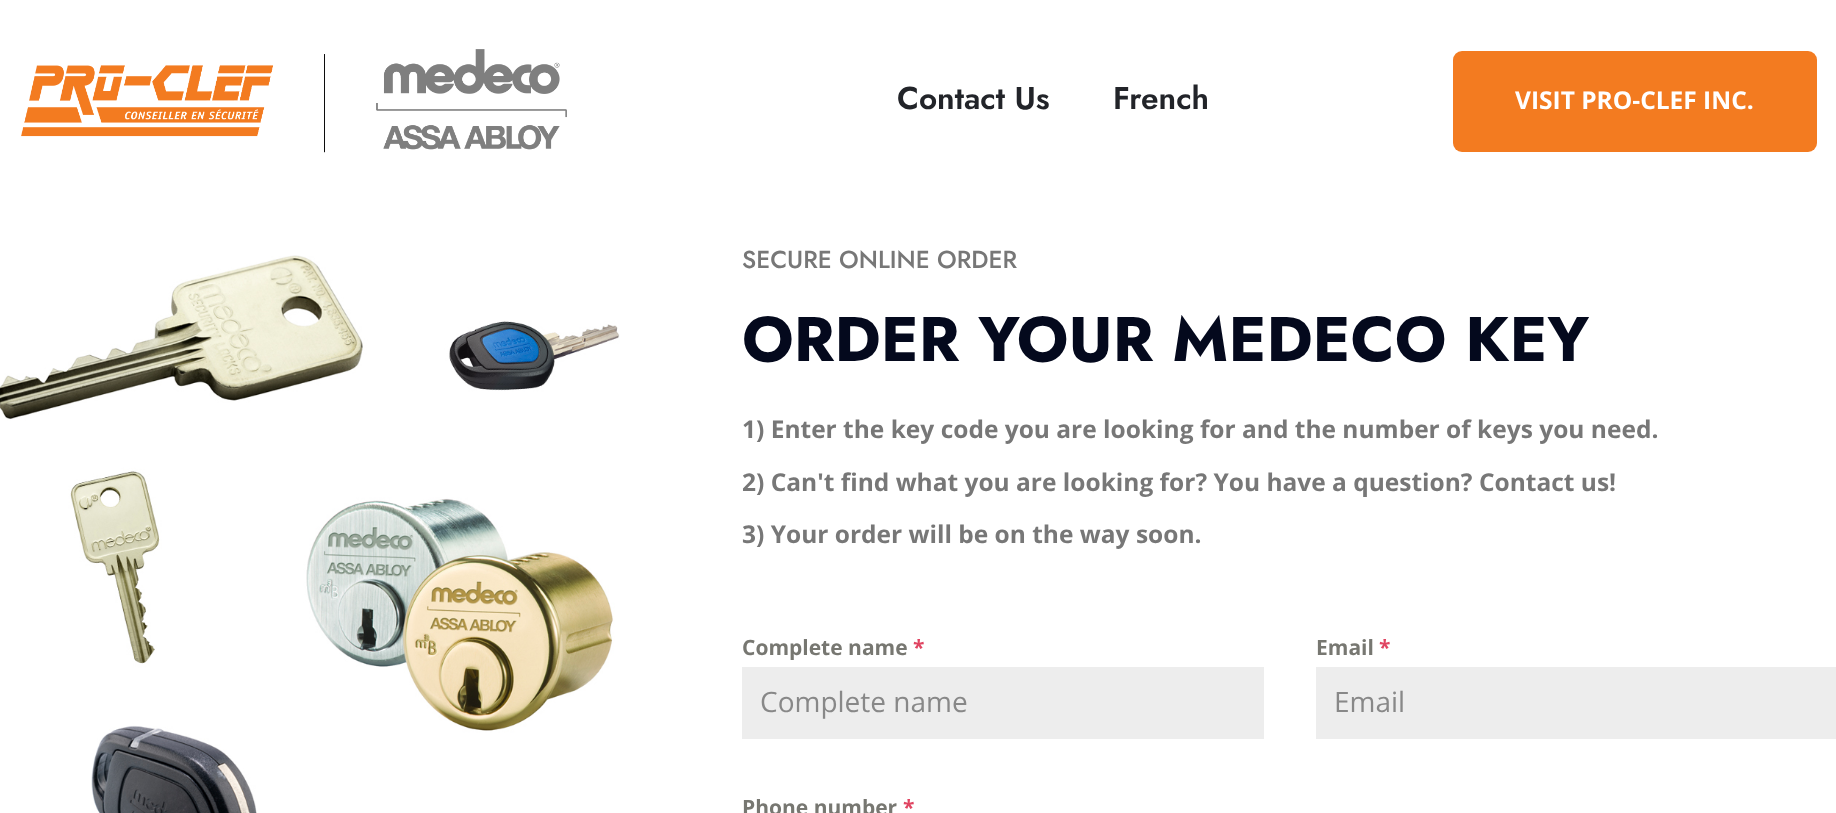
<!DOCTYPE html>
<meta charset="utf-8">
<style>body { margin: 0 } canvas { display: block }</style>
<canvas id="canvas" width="1836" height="813"></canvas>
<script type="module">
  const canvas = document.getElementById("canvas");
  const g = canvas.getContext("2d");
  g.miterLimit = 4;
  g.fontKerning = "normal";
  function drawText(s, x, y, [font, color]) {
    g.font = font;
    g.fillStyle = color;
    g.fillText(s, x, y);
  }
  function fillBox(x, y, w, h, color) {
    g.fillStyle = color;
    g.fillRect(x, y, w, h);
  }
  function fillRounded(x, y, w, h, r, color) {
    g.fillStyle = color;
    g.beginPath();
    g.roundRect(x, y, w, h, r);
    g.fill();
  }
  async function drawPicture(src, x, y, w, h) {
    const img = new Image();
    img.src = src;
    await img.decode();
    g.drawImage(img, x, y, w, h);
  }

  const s1 = ["600 31.5px Jost", "#222429"];
  const s2 = ["bold 24.5px Open Sans", "#FFFFFF"];
  const s3 = ["500 24.5px Jost", "#777777"];
  const s4 = ["bold 63px Jost", "#04091D"];
  const s5 = ["bold 24.5px Open Sans", "#777777"];
  const s6 = ["bold 21px Open Sans", "#777771"];
  const s7 = ["bold 21px Open Sans", "#E04562"];
  const s8 = ["28px Open Sans", "#888888"];

  fillBox(0, 0, 1836, 813, "#FFFFFF");
  await drawPicture("pic1.png", 21, 49, 546, 104);
  drawText("Contact Us", 897, 109, s1);
  drawText("French", 1113, 109, s1);
  fillRounded(1453, 51, 364, 101, 9, "#F37B20");
  drawText("VISIT PRO-CLEF INC.", 1515, 109, s2);
  await drawPicture("pic2.png", 0, 255, 620, 558);
  drawText("SECURE ONLINE ORDER", 742, 268, s3);
  drawText("ORDER YOUR MEDECO KEY", 742, 361, s4);
  drawText("1) Enter the key code you are looking for and the number of keys you need.", 742, 438, s5);
  drawText("2) Can't find what you are looking for? You have a question? Contact us!", 742, 491, s5);
  drawText("3) Your order will be on the way soon.", 742, 543, s5);
  drawText("Complete name", 742, 655, s6);
  drawText("*", 913, 655, s7);
  fillBox(742, 667, 522, 72, "#EDEDED");
  drawText("Complete name", 760, 712, s8);
  drawText("Email", 1316, 655, s6);
  drawText("*", 1379, 655, s7);
  fillBox(1316, 667, 520, 72, "#EDEDED");
  drawText("Email", 1334, 712, s8);
  drawText("Phone number", 742, 815, s6);
  drawText("*", 903, 815, s7);
</script>
